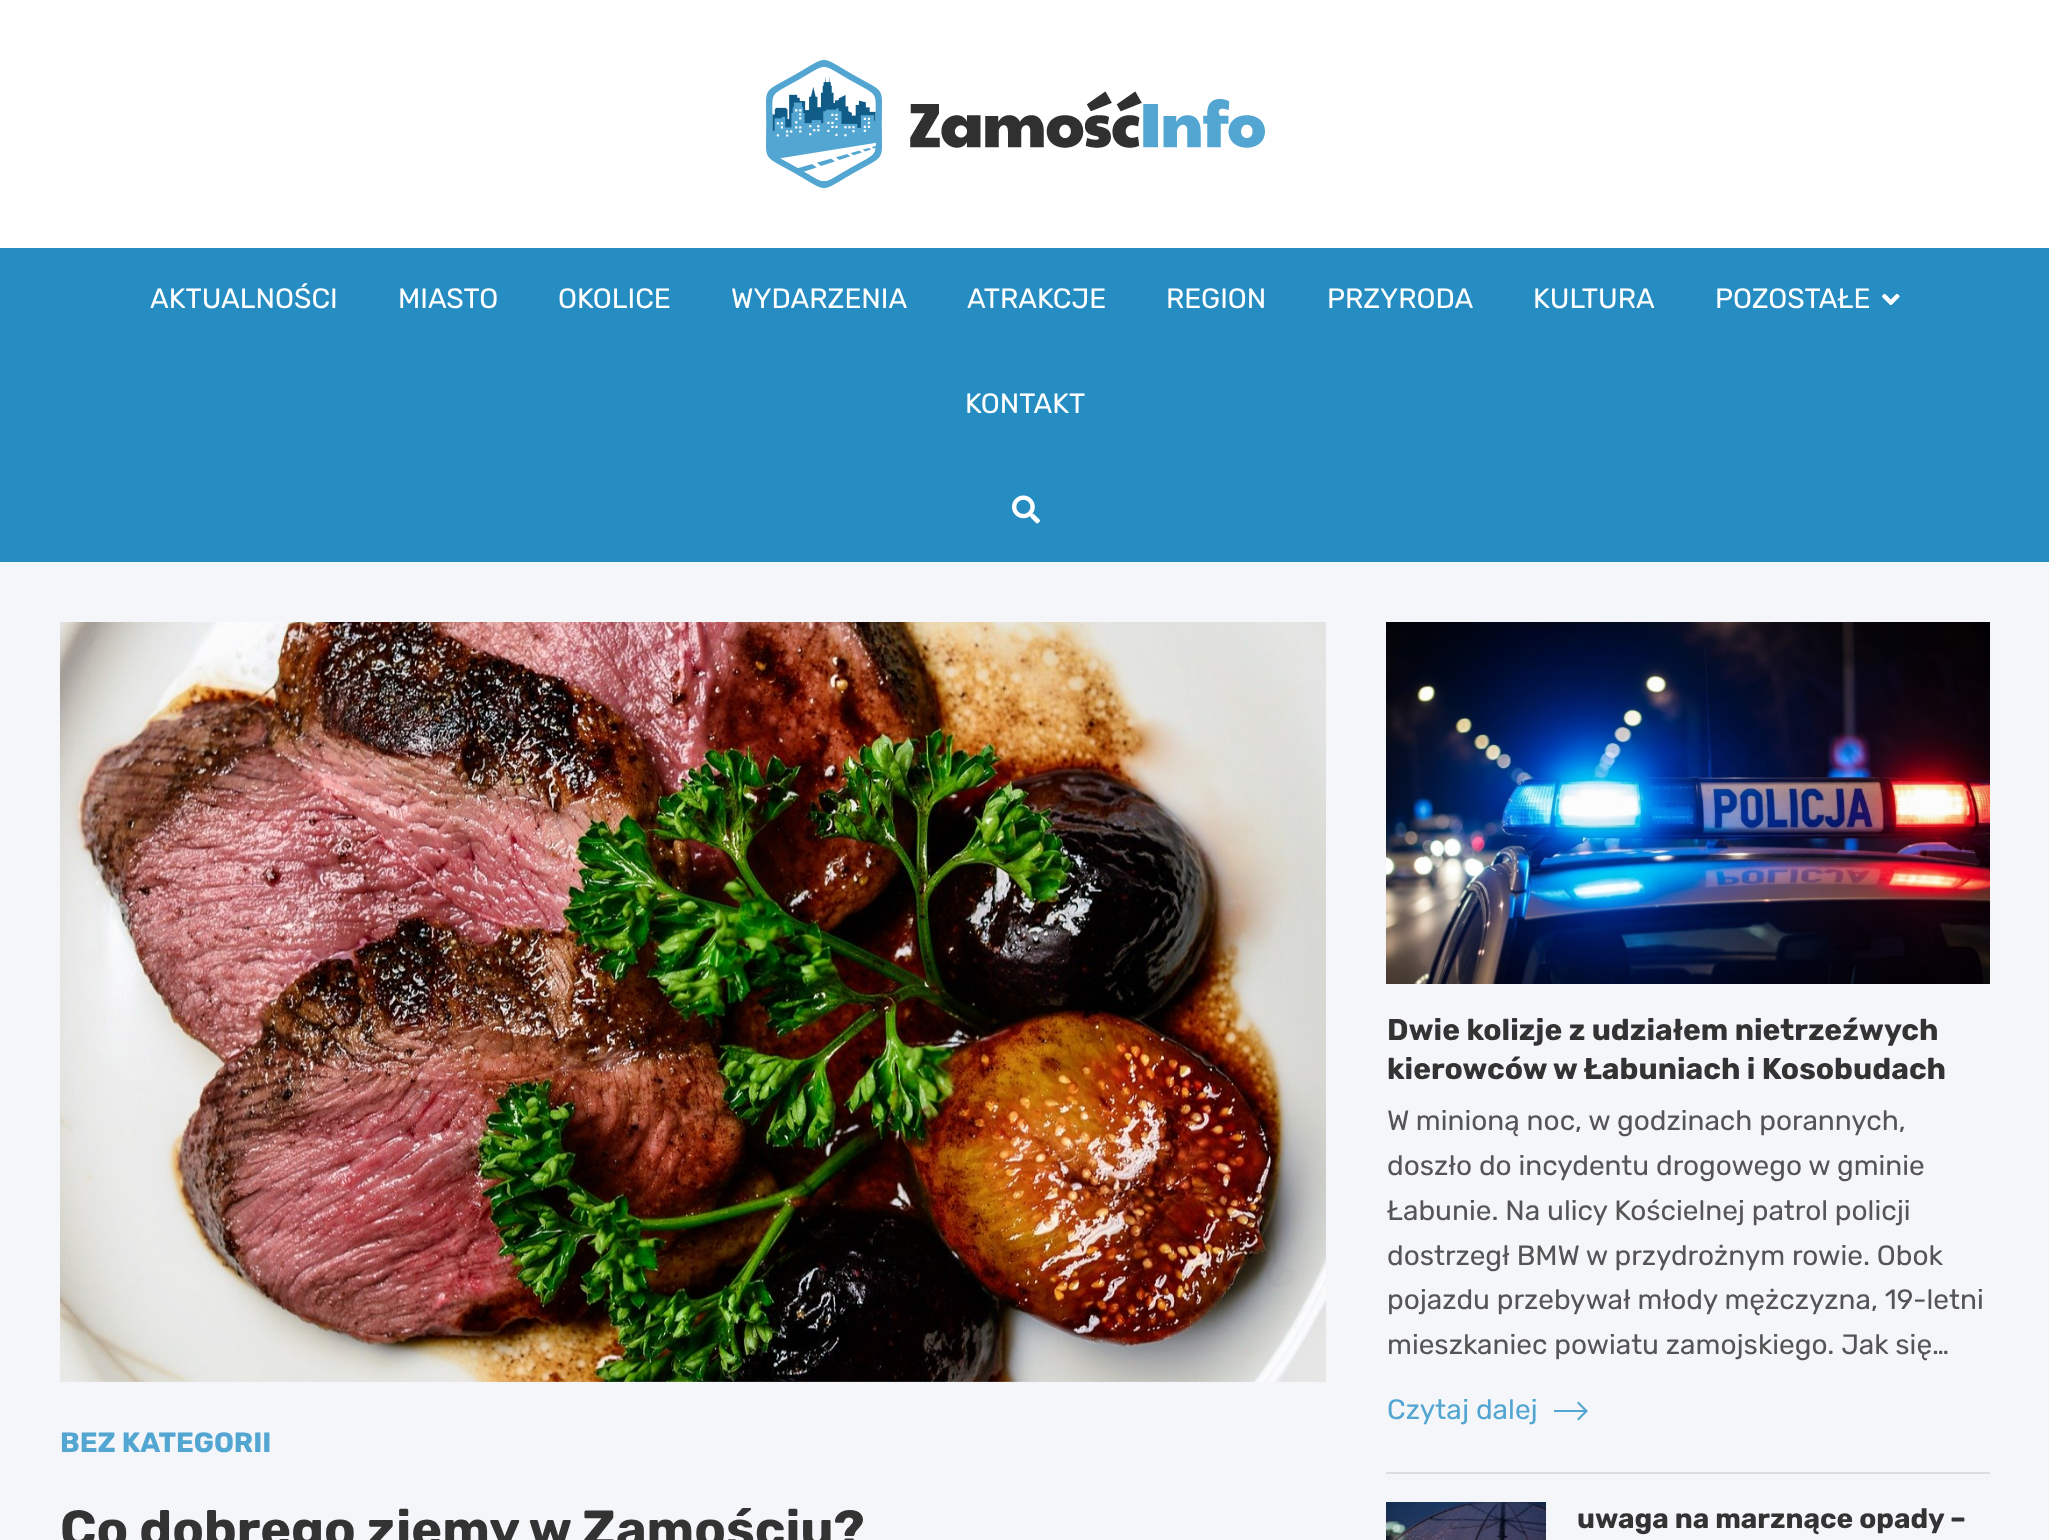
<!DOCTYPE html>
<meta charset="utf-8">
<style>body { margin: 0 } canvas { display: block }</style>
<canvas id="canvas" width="2049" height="1540"></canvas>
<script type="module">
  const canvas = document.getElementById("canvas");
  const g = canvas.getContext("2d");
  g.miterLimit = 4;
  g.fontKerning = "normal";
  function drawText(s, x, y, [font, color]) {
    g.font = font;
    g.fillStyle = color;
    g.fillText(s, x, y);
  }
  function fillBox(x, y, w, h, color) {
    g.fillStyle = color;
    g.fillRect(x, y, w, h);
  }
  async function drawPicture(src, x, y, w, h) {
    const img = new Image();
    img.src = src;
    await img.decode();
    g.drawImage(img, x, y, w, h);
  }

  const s1 = ["28px Rubik", "#FFFFFF"];
  const s2 = ["bold 28px Rubik", "#52A6D1"];
  const s3 = ["bold 52px Rubik", "#333333"];
  const s4 = ["bold 30px Rubik", "#333333"];
  const s5 = ["28px Rubik", "#555555"];
  const s6 = ["28px Rubik", "#52A6D1"];
  const s7 = ["bold 28px Rubik", "#333333"];

  fillBox(0, 0, 2049, 1540, "#F4F6F9");
  fillBox(0, 0, 2049, 248, "#FFFFFF");
  await drawPicture("pic1.png", 766, 60, 499, 128);
  fillBox(0, 248, 2049, 314, "#258DC2");
  drawText("AKTUALNOŚCI", 150, 308, s1);
  drawText("MIASTO", 398, 308, s1);
  drawText("OKOLICE", 558, 308, s1);
  drawText("WYDARZENIA", 731, 308, s1);
  drawText("ATRAKCJE", 967, 308, s1);
  drawText("REGION", 1166, 308, s1);
  drawText("PRZYRODA", 1327, 308, s1);
  drawText("KULTURA", 1533, 308, s1);
  drawText("POZOSTAŁE", 1715, 308, s1);
  await drawPicture("pic2.png", 1882, 293, 18, 13);
  drawText("KONTAKT", 965, 413, s1);
  await drawPicture("pic3.png", 1012, 495, 28, 29);
  await drawPicture("pic4.png", 60, 622, 1266, 760);
  drawText("BEZ KATEGORII", 60, 1452, s2);
  drawText("Co dobrego zjemy w Zamościu?", 60, 1547, s3);
  await drawPicture("pic5.png", 1386, 622, 604, 362);
  drawText("Dwie kolizje z udziałem nietrzeźwych", 1387, 1040, s4);
  drawText("kierowców w Łabuniach i Kosobudach", 1387, 1079, s4);
  drawText("W minioną noc, w godzinach porannych,", 1387, 1130, s5);
  drawText("doszło do incydentu drogowego w gminie", 1387, 1175, s5);
  drawText("Łabunie. Na ulicy Kościelnej patrol policji", 1387, 1220, s5);
  drawText("dostrzegł BMW w przydrożnym rowie. Obok", 1387, 1265, s5);
  drawText("pojazdu przebywał młody mężczyzna, 19-letni", 1387, 1309, s5);
  drawText("mieszkaniec powiatu zamojskiego. Jak się…", 1387, 1354, s5);
  drawText("Czytaj dalej", 1387, 1419, s6);
  g.beginPath();
  g.moveTo(1578.5, 1401.5);
  g.lineTo(1577, 1403);
  g.lineTo(1584, 1410);
  g.lineTo(1554, 1410);
  g.lineTo(1554, 1412);
  g.lineTo(1584, 1412);
  g.lineTo(1577, 1419);
  g.lineTo(1578.5, 1420.5);
  g.lineTo(1588, 1411);
  g.closePath();
  g.fill();
  fillBox(1386, 1472, 604, 2, "#DCDDE0");
  await drawPicture("pic6.png", 1386, 1502, 160, 38);
  drawText("uwaga na marznące opady –", 1577, 1528, s7);
</script>
